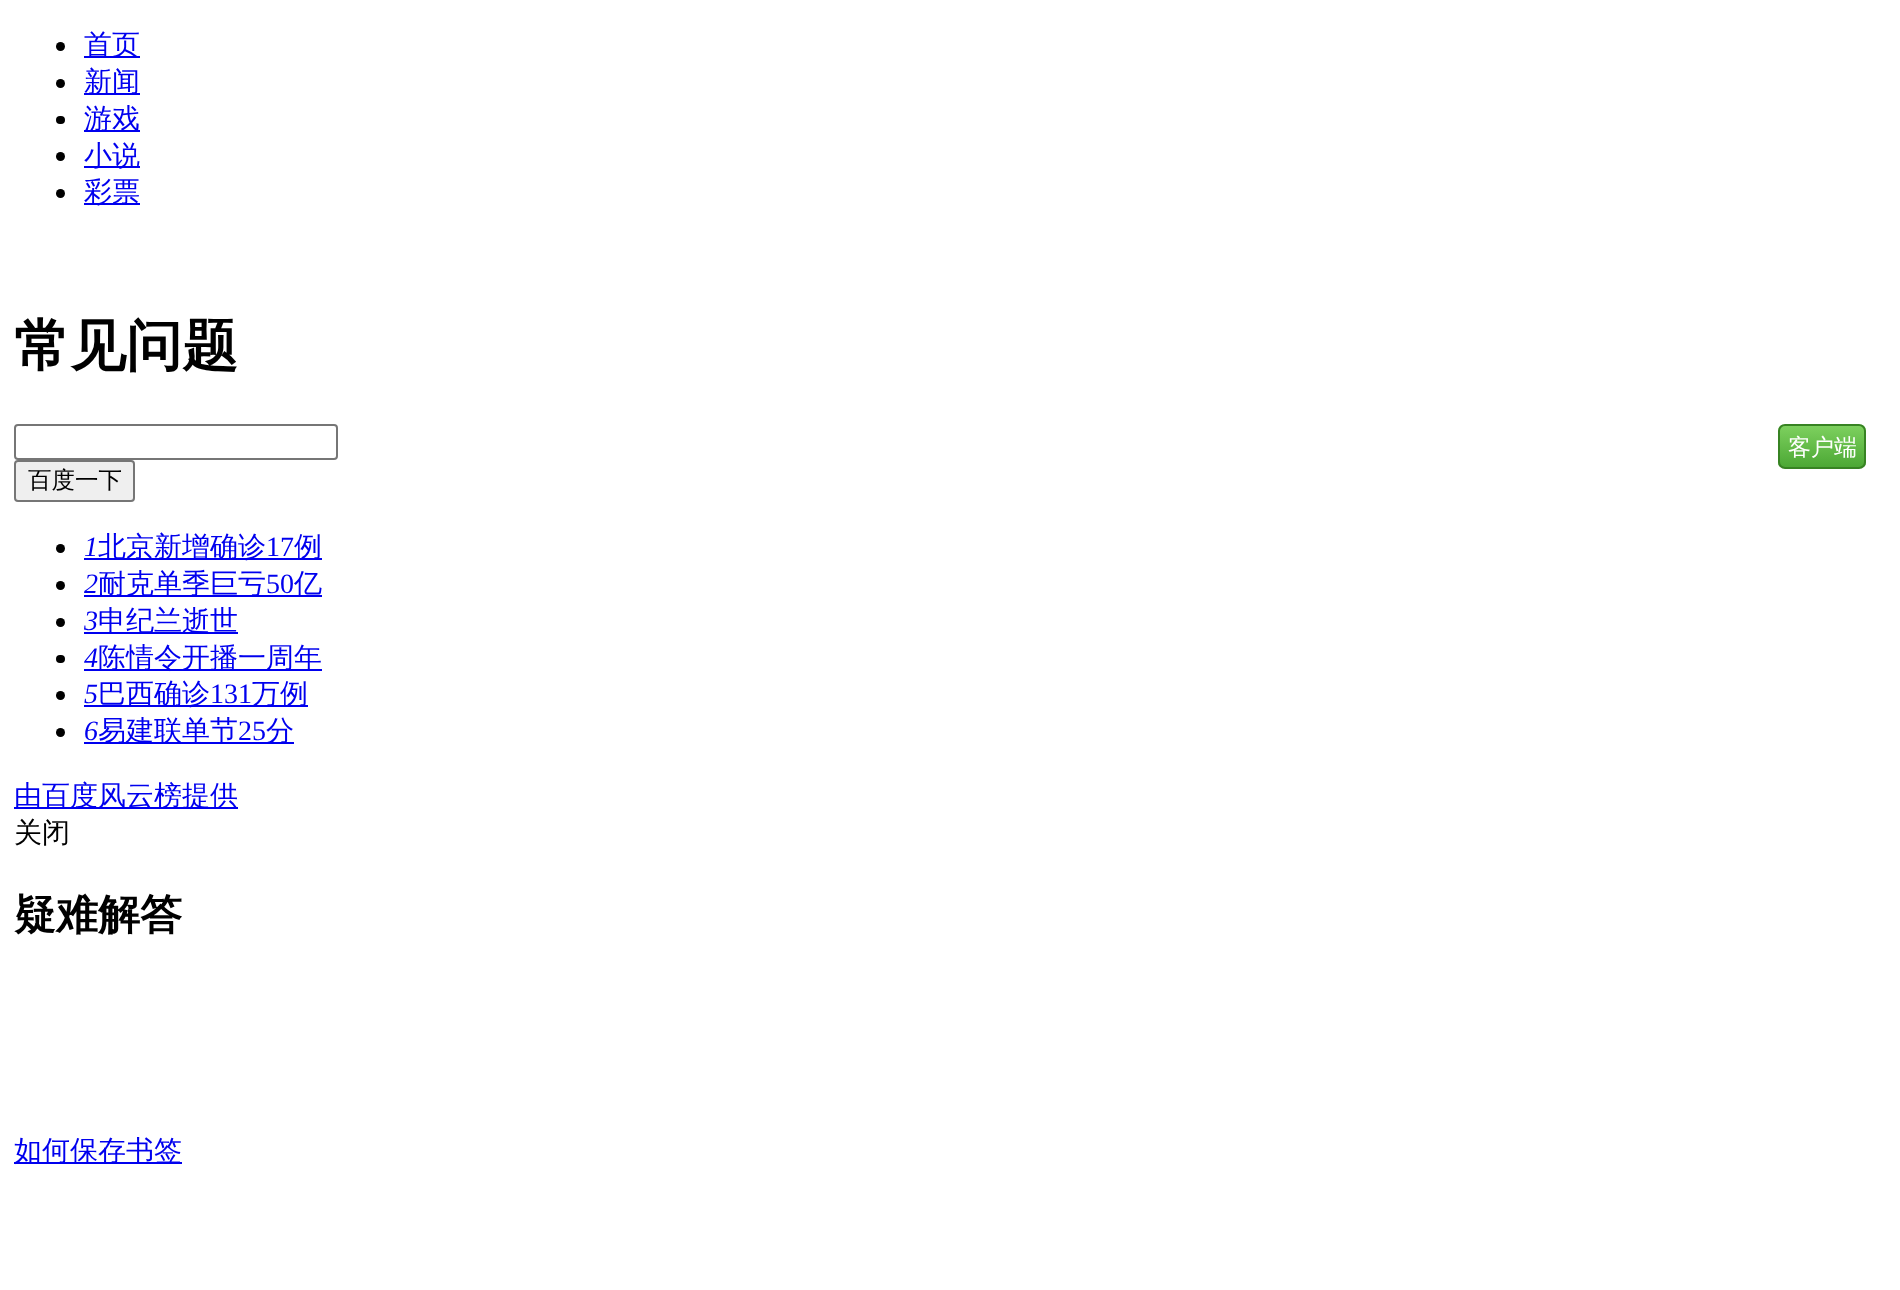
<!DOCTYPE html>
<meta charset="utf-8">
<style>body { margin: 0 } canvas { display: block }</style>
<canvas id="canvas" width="1900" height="1290"></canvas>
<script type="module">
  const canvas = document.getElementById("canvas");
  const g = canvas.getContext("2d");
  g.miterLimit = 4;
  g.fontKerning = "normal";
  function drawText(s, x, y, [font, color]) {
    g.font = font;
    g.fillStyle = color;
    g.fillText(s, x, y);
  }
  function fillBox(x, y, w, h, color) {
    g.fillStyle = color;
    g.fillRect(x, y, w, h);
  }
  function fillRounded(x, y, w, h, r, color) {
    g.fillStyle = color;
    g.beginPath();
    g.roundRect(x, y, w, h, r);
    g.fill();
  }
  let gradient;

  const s1 = ["500 28px WenQuanYi Zen Hei", "#0000EE"];
  const s2 = ["bold 56px WenQuanYi Zen Hei", "#000000"];
  const s3 = ["500 23px WenQuanYi Zen Hei", "#FFFFFF"];
  const s4 = ["500 23.5px WenQuanYi Zen Hei", "#000000"];
  const s5 = ["italic 28px Liberation Serif", "#0000EE"];
  const s6 = ["28px Liberation Serif", "#0000EE"];
  const s7 = ["500 28px WenQuanYi Zen Hei", "#000000"];
  const s8 = ["bold 42px WenQuanYi Zen Hei", "#000000"];

  fillBox(0, 0, 1900, 1290, "#FFFFFF");
  g.fillStyle = "#000000";
  g.beginPath();
  g.arc(60.5, 46.5, 4.5, 0, Math.PI * 2);
  g.fill();
  fillBox(84, 56, 56, 2, "#0000EE");
  drawText("首页", 84, 54, s1);
  g.fillStyle = "#000000";
  g.beginPath();
  g.arc(60.5, 83.5, 4.5, 0, Math.PI * 2);
  g.fill();
  fillBox(84, 93, 56, 2, "#0000EE");
  drawText("新闻", 84, 91, s1);
  fillRounded(56, 116, 9, 8, 4, "#000000");
  fillBox(84, 130, 56, 2, "#0000EE");
  drawText("游戏", 84, 128, s1);
  g.fillStyle = "#000000";
  g.beginPath();
  g.arc(60.5, 156.5, 4.5, 0, Math.PI * 2);
  g.fill();
  fillBox(84, 166, 56, 2, "#0000EE");
  drawText("小说", 84, 165, s1);
  g.fillStyle = "#000000";
  g.beginPath();
  g.arc(60.5, 193.5, 4.5, 0, Math.PI * 2);
  g.fill();
  fillBox(84, 203, 56, 2, "#0000EE");
  drawText("彩票", 84, 201, s1);
  drawText("常见问题", 14, 365, s2);
  g.save();
  g.beginPath();
  g.roundRect(1778, 424, 88, 45, 7);
  g.clip();
  gradient = g.createLinearGradient(1780, 425, 1780, 467);
  gradient.addColorStop(0, "#7ED15F");
  gradient.addColorStop(1, "#4CA835");
  g.fillStyle = gradient;
  g.fillRect(1778, 425, 88, 42);
  g.restore();
  g.beginPath();
  g.roundRect(1779, 425, 86, 43, 6);
  g.strokeStyle = "#378323";
  g.lineWidth = 2;
  g.stroke();
  drawText("客户端", 1788, 455, s3);
  g.beginPath();
  g.roundRect(15, 425, 322, 34, 3);
  g.strokeStyle = "#767676";
  g.stroke();
  g.fillStyle = "#EFEFEF";
  g.beginPath();
  g.roundRect(15, 461, 119, 40, 3);
  g.fill();
  g.stroke();
  drawText("百度一下", 28, 488, s4);
  g.beginPath();
  g.arc(60.5, 548.5, 4.5, 0, Math.PI * 2);
  g.fill();
  drawText("1", 84, 556, s5);
  fillBox(84, 558, 238, 2, "#0000EE");
  drawText("北京新增确诊", 98, 556, s1);
  drawText("17", 266, 556, s6);
  drawText("例", 294, 556, s1);
  g.fillStyle = "#000000";
  g.beginPath();
  g.arc(60.5, 585.5, 4.5, 0, Math.PI * 2);
  g.fill();
  drawText("2", 84, 593, s5);
  fillBox(84, 595, 238, 2, "#0000EE");
  drawText("耐克单季巨亏", 98, 593, s1);
  drawText("50", 266, 593, s6);
  drawText("亿", 294, 593, s1);
  g.fillStyle = "#000000";
  g.beginPath();
  g.arc(60.5, 622.5, 4.5, 0, Math.PI * 2);
  g.fill();
  drawText("3", 84, 630, s5);
  fillBox(84, 632, 154, 2, "#0000EE");
  drawText("申纪兰逝世", 98, 630, s1);
  fillRounded(56, 655, 9, 8, 4, "#000000");
  drawText("4", 84, 667, s5);
  fillBox(84, 669, 238, 2, "#0000EE");
  drawText("陈情令开播一周年", 98, 667, s1);
  g.fillStyle = "#000000";
  g.beginPath();
  g.arc(60.5, 695.5, 4.5, 0, Math.PI * 2);
  g.fill();
  drawText("5", 84, 703, s5);
  fillBox(84, 705, 224, 2, "#0000EE");
  drawText("巴西确诊", 98, 703, s1);
  drawText("131", 210, 703, s6);
  drawText("万例", 252, 703, s1);
  g.fillStyle = "#000000";
  g.beginPath();
  g.arc(60.5, 732.5, 4.5, 0, Math.PI * 2);
  g.fill();
  drawText("6", 84, 740, s5);
  fillBox(84, 742, 210, 2, "#0000EE");
  drawText("易建联单节", 98, 740, s1);
  drawText("25", 238, 740, s6);
  drawText("分", 266, 740, s1);
  fillBox(14, 807, 224, 2, "#0000EE");
  drawText("由百度风云榜提供", 14, 805, s1);
  drawText("关闭", 14, 842, s7);
  drawText("疑难解答", 14, 929, s8);
  fillBox(14, 1162, 168, 2, "#0000EE");
  drawText("如何保存书签", 14, 1160, s1);
</script>
